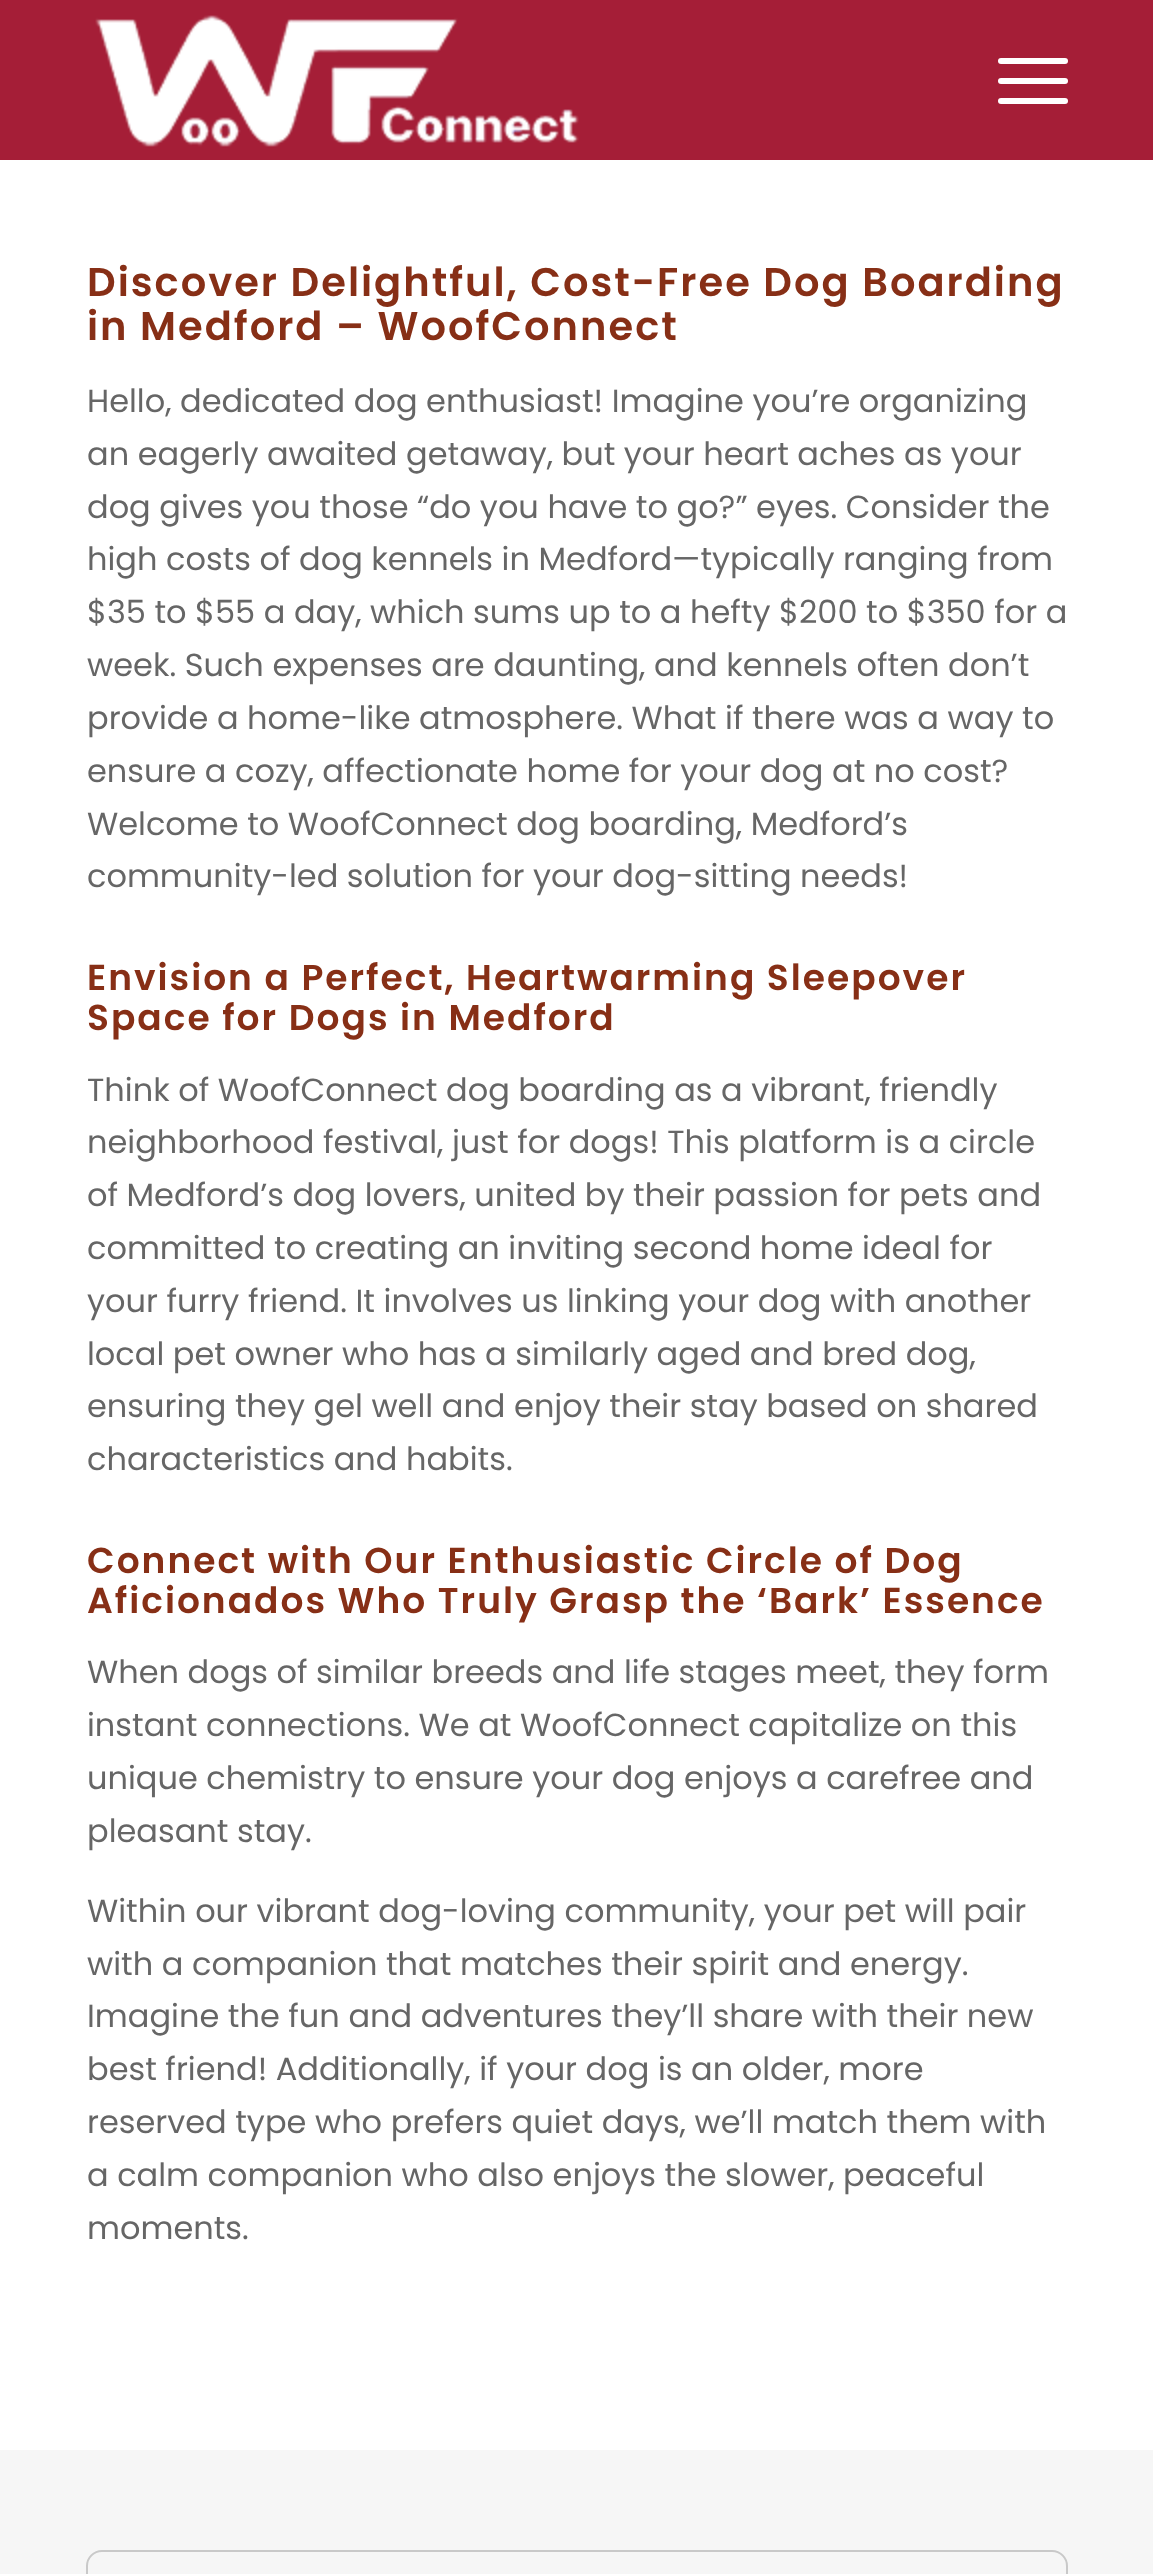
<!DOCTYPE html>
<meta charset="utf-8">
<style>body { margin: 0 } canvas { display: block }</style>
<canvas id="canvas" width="1153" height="2574"></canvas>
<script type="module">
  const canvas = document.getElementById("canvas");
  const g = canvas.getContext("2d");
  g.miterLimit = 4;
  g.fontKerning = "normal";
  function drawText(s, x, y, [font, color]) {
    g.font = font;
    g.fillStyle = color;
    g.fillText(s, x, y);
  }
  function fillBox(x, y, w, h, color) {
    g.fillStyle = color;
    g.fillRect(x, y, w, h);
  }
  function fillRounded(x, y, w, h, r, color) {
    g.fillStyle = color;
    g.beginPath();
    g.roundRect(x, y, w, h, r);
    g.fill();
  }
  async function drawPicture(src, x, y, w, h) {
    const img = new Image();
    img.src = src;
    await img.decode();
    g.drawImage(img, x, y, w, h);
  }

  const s1 = ["600 40px Poppins", "#872F16"];
  const s2 = ["32px Poppins", "#666666"];
  const s3 = ["600 36px Poppins", "#872F16"];

  fillBox(0, 0, 1153, 2574, "#FFFFFF");
  fillBox(0, 0, 1153, 160, "#A51E37");
  await drawPicture("pic1.png", 95, 15, 484, 132);
  fillRounded(998, 78, 70, 6, 3, "#FFFFFF");
  fillRounded(998, 58, 70, 6, 3, "#FFFFFF");
  fillRounded(998, 98, 70, 6, 3, "#FFFFFF");
  g.letterSpacing = "2px";
  drawText("Discover Delightful, Cost-Free Dog Boarding", 87, 296, s1);
  drawText("in Medford – WoofConnect", 87, 340, s1);
  g.letterSpacing = "0px";
  drawText("Hello, dedicated dog enthusiast! Imagine you’re organizing", 87, 412, s2);
  drawText("an eagerly awaited getaway, but your heart aches as your", 87, 465, s2);
  drawText("dog gives you those “do you have to go?” eyes. Consider the", 87, 518, s2);
  drawText("high costs of dog kennels in Medford—typically ranging from", 87, 570, s2);
  drawText("$35 to $55 a day, which sums up to a hefty $200 to $350 for a", 87, 623, s2);
  drawText("week. Such expenses are daunting, and kennels often don’t", 87, 676, s2);
  drawText("provide a home-like atmosphere. What if there was a way to", 87, 729, s2);
  drawText("ensure a cozy, affectionate home for your dog at no cost?", 87, 782, s2);
  drawText("Welcome to WoofConnect dog boarding, Medford’s", 87, 835, s2);
  drawText("community-led solution for your dog-sitting needs!", 87, 887, s2);
  g.letterSpacing = "2px";
  drawText("Envision a Perfect, Heartwarming Sleepover", 87, 990, s3);
  drawText("Space for Dogs in Medford", 87, 1030, s3);
  g.letterSpacing = "0px";
  drawText("Think of WoofConnect dog boarding as a vibrant, friendly", 87, 1101, s2);
  drawText("neighborhood festival, just for dogs! This platform is a circle", 87, 1153, s2);
  drawText("of Medford’s dog lovers, united by their passion for pets and", 87, 1206, s2);
  drawText("committed to creating an inviting second home ideal for", 87, 1259, s2);
  drawText("your furry friend. It involves us linking your dog with another", 87, 1312, s2);
  drawText("local pet owner who has a similarly aged and bred dog,", 87, 1365, s2);
  drawText("ensuring they gel well and enjoy their stay based on shared", 87, 1417, s2);
  drawText("characteristics and habits.", 87, 1470, s2);
  g.letterSpacing = "2px";
  drawText("Connect with Our Enthusiastic Circle of Dog", 87, 1573, s3);
  drawText("Aficionados Who Truly Grasp the ‘Bark’ Essence", 87, 1613, s3);
  g.letterSpacing = "0px";
  drawText("When dogs of similar breeds and life stages meet, they form", 87, 1683, s2);
  drawText("instant connections. We at WoofConnect capitalize on this", 87, 1736, s2);
  drawText("unique chemistry to ensure your dog enjoys a carefree and", 87, 1789, s2);
  drawText("pleasant stay.", 87, 1842, s2);
  drawText("Within our vibrant dog-loving community, your pet will pair", 87, 1922, s2);
  drawText("with a companion that matches their spirit and energy.", 87, 1975, s2);
  drawText("Imagine the fun and adventures they’ll share with their new", 87, 2027, s2);
  drawText("best friend! Additionally, if your dog is an older, more", 87, 2080, s2);
  drawText("reserved type who prefers quiet days, we’ll match them with", 87, 2133, s2);
  drawText("a calm companion who also enjoys the slower, peaceful", 87, 2186, s2);
  drawText("moments.", 87, 2239, s2);
  fillBox(0, 2450, 1153, 124, "#F6F6F6");
  g.beginPath();
  g.roundRect(87, 2551, 980, 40, 15);
  g.strokeStyle = "#C9C9C9";
  g.lineWidth = 2;
  g.stroke();
</script>
